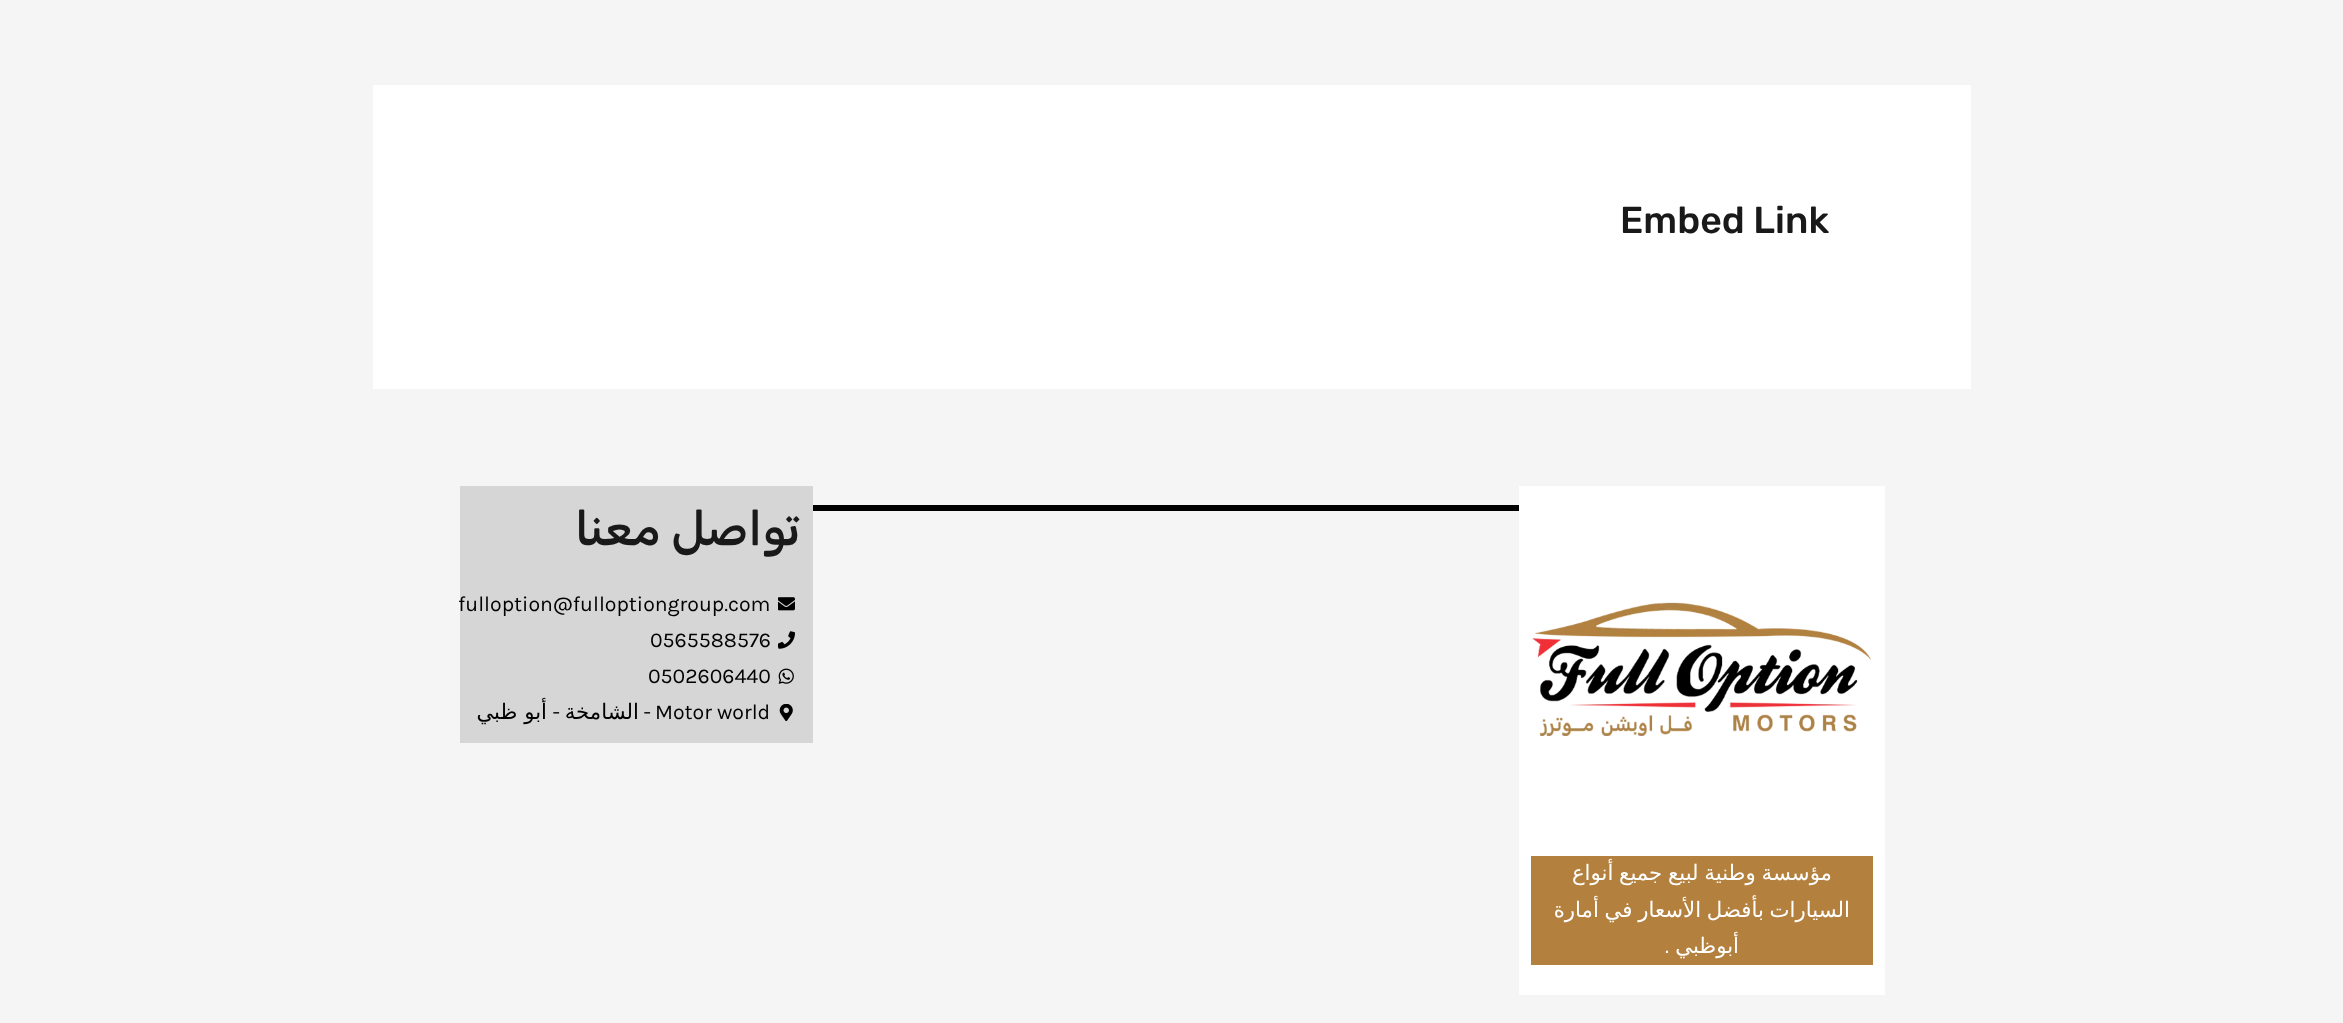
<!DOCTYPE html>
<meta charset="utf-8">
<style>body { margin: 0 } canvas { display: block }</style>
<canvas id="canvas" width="2343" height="1023"></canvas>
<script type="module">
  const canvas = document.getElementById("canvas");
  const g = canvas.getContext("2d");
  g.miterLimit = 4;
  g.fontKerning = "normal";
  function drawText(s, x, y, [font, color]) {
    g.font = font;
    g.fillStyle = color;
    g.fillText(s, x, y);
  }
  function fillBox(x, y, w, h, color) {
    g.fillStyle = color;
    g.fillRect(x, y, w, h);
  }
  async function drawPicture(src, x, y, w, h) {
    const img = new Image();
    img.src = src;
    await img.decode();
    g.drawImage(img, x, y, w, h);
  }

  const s1 = ["500 37.5px Rubik", "#191919"];
  const s2 = ["500 47.5px Rubik", "#191919"];
  const s3 = ["21.25px Karla", "#000000"];
  const s4 = ["21.25px DejaVu Sans", "#000000"];
  const s5 = ["21.25px DejaVu Sans", "#FFFFFF"];
  const s6 = ["21.25px Liberation Sans", "#FFFFFF"];

  fillBox(0, 0, 2343, 1023, "#F5F5F5");
  fillBox(373, 85, 1598, 304, "#FFFFFF");
  drawText("Embed Link", 1620, 233, s1);
  fillBox(813, 505, 706, 6, "#000000");
  fillBox(460, 486, 353, 257, "#D6D6D6");
  g.direction = "rtl";
  drawText("تواصل معنا", 800, 545, s2);
  await drawPicture("pic1.png", 778, 597, 17, 14);
  g.direction = "ltr";
  drawText("fulloption@fulloptiongroup.com", 458, 611, s3);
  await drawPicture("pic2.png", 778, 631, 17, 18);
  drawText("0565588576", 650, 647, s3);
  await drawPicture("pic3.png", 778, 668, 16, 16);
  drawText("0502606440", 648, 683, s3);
  await drawPicture("pic4.png", 779, 704, 14, 17);
  drawText("Motor world", 655, 719, s3);
  g.direction = "rtl";
  drawText("-", 651, 719, s3);
  drawText("الشامخة", 639, 719, s4);
  drawText("-", 560, 719, s3);
  drawText("أبو ظبي", 547, 719, s4);
  fillBox(1519, 486, 366, 509, "#FFFFFF");
  await drawPicture("pic5.png", 1532, 602, 339, 134);
  fillBox(1531, 856, 342, 109, "#B3803E");
  g.wordSpacing = "-1px";
  drawText("مؤسسة وطنية لبيع جميع أنواع", 1832, 880, s5);
  drawText("السيارات بأفضل الأسعار في أمارة", 1850, 917, s5);
  g.wordSpacing = "0px";
  drawText("أبوظبي", 1739, 953, s5);
  drawText(".", 1670, 953, s6);
</script>
